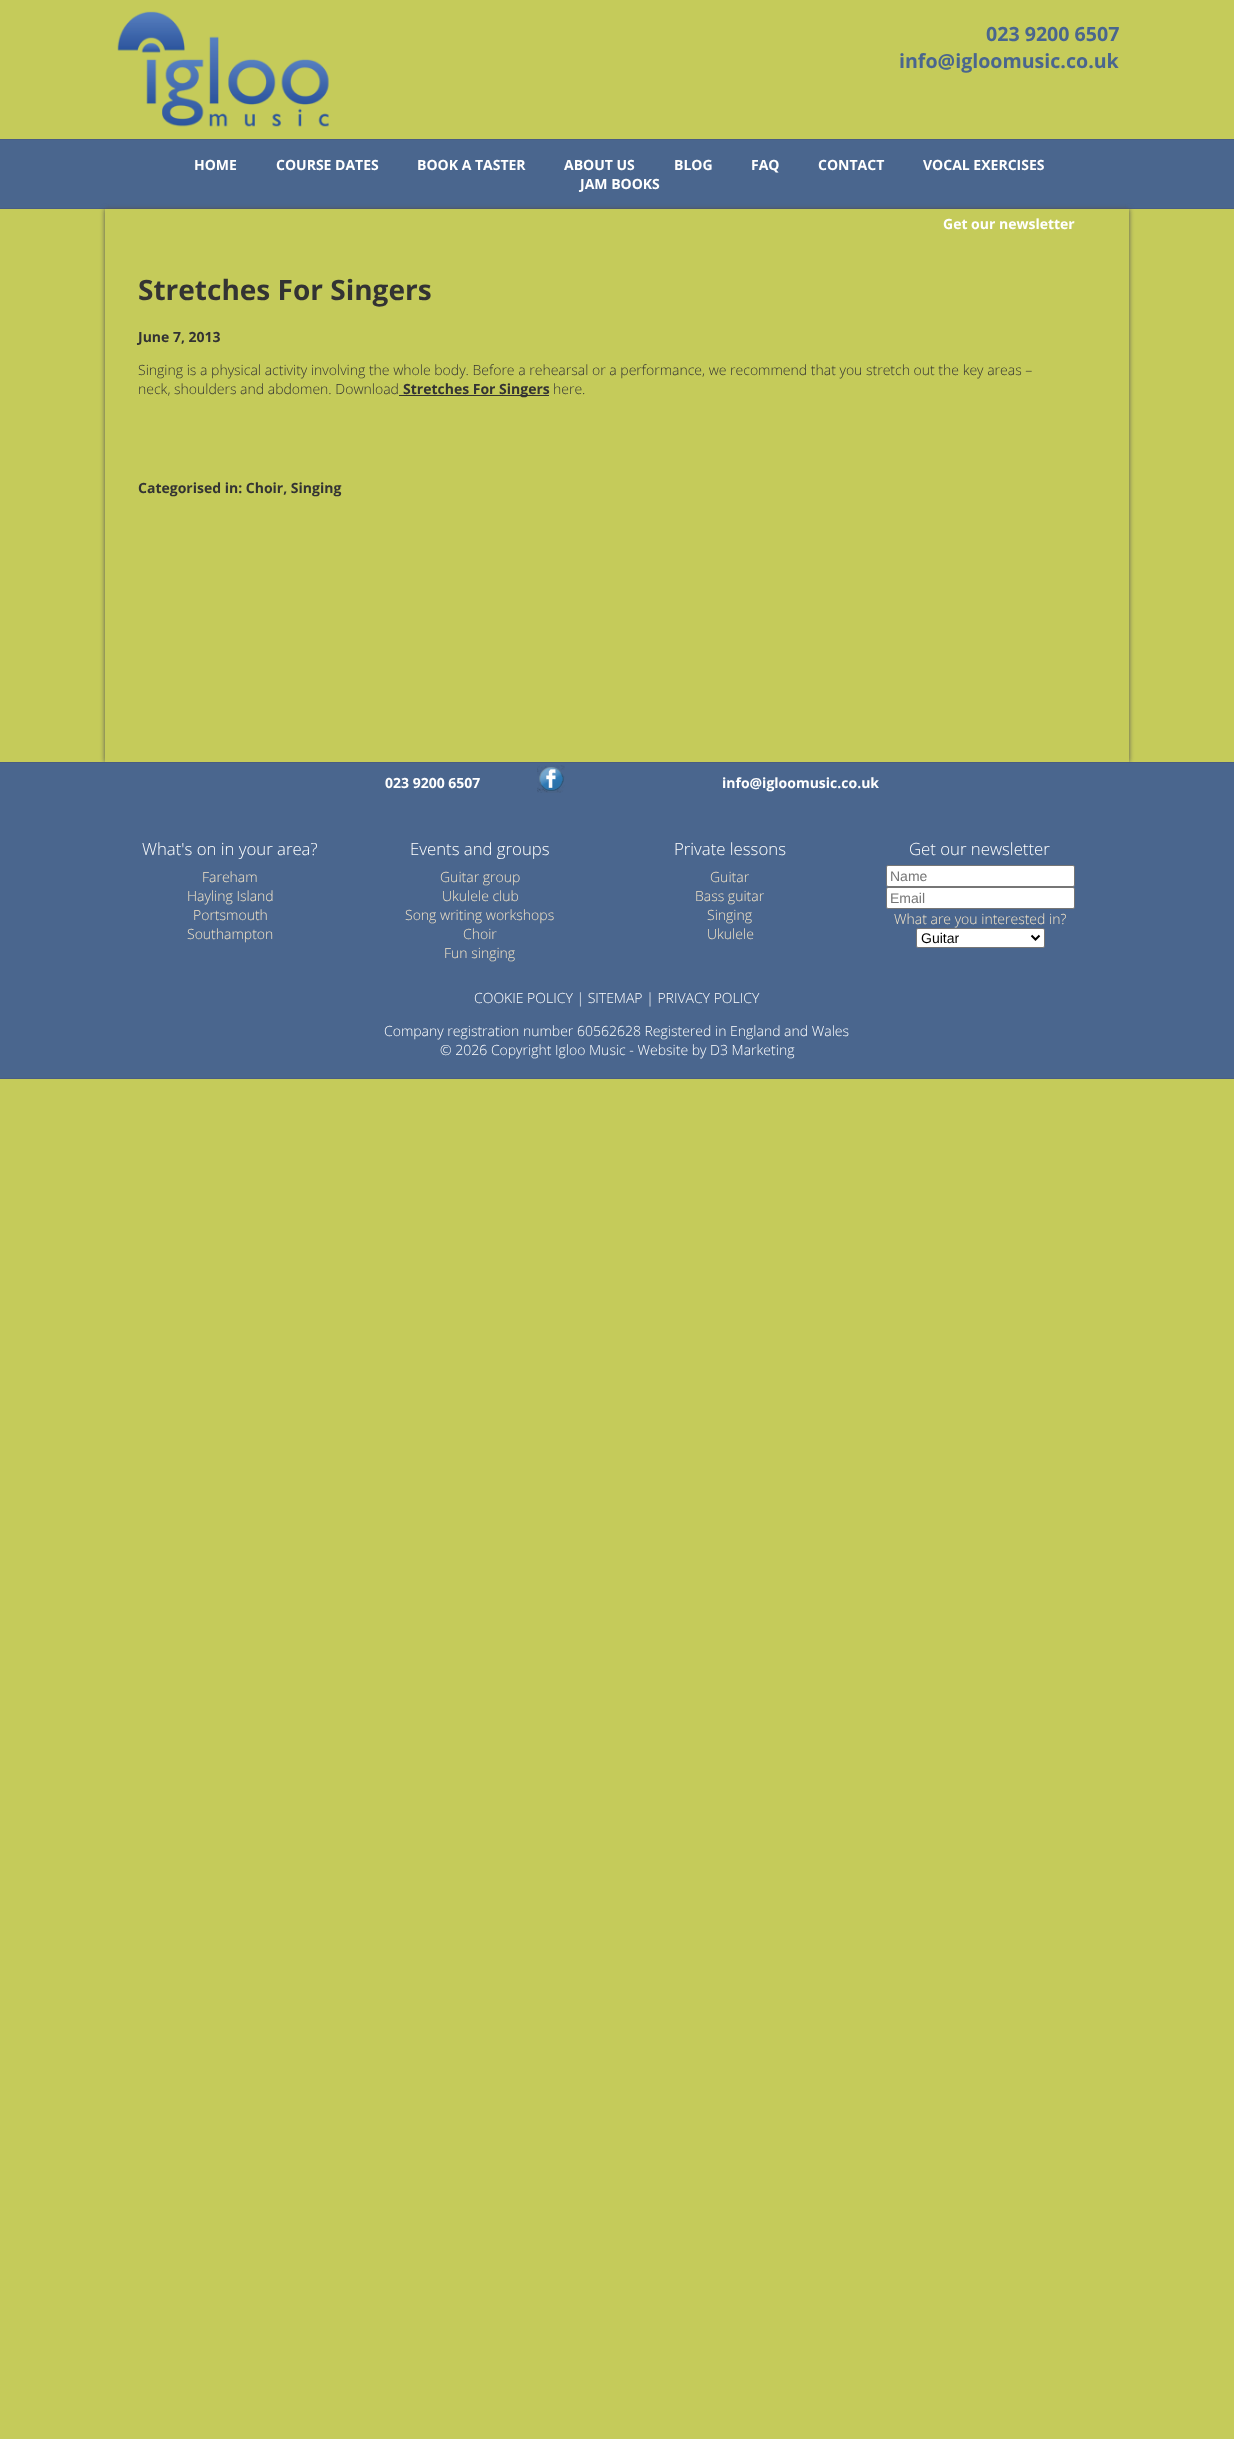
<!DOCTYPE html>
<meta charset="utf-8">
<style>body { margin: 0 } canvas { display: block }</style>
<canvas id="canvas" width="1234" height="2439"></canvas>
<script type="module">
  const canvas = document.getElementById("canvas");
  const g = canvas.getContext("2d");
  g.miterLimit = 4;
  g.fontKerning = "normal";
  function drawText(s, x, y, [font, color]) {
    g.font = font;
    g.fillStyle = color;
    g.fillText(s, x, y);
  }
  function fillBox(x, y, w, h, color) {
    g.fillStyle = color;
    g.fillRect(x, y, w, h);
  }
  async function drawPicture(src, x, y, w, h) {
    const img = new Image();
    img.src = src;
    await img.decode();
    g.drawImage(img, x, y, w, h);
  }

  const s1 = ["bold 19.6px Open Sans", "#4A668E"];
  const s2 = ["bold 14px Open Sans", "#FFFFFF"];
  const s3 = ["bold 28px Open Sans", "#333333"];
  const s4 = ["bold 14px Open Sans", "#333333"];
  const s5 = ["300 14px Open Sans", "#333333"];
  const s6 = ["300 16.75px Open Sans", "#FFFFFF"];
  const s7 = ["300 14px Open Sans", "#F3E4C8"];
  const s8 = ["14px Liberation Sans", "#757575"];
  const s9 = ["14px Liberation Sans", "#000000"];
  const s10 = ["300 14px Open Sans", "#FFFFFF"];

  fillBox(0, 0, 1234, 2439, "#C5CB5A");
  await drawPicture("pic1.png", 117, 11, 212, 116);
  drawText("023 9200 6507", 986, 41, s1);
  drawText("info@igloomusic.co.uk", 899, 68, s1);
  fillBox(0, 140, 1234, 68, "#4A668E");
  fillBox(0, 139, 1234, 1, "#495D82");
  fillBox(0, 208, 1234, 1, "#495D82");
  drawText("HOME", 194, 170, s2);
  drawText("COURSE DATES", 276, 170, s2);
  drawText("BOOK A TASTER", 417, 170, s2);
  drawText("ABOUT US", 564, 170, s2);
  drawText("BLOG", 674, 170, s2);
  drawText("FAQ", 751, 170, s2);
  drawText("CONTACT", 818, 170, s2);
  drawText("VOCAL EXERCISES", 923, 170, s2);
  drawText("JAM BOOKS", 580, 189, s2);
  g.save();
  g.beginPath();
  g.moveTo(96, 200);
  g.lineTo(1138, 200);
  g.lineTo(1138, 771);
  g.lineTo(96, 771);
  g.closePath();
  g.moveTo(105, 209);
  g.lineTo(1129, 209);
  g.lineTo(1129, 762);
  g.lineTo(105, 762);
  g.closePath();
  g.clip("evenodd");
  g.fillStyle = "#555555";
  g.filter = "blur(2.5px)";
  g.beginPath();
  g.rect(105, 209, 1024, 553);
  g.fill();
  g.filter = "none";
  g.restore();
  drawText("Get our newsletter", 943, 229, s2);
  drawText("Stretches For Singers", 138, 300, s3);
  drawText("June 7, 2013", 138, 342, s4);
  drawText("Singing is a physical activity involving the whole body. Before a rehearsal or a performance, we recommend that you stretch out the key areas –", 138, 375, s5);
  drawText("neck, shoulders and abdomen. Download", 138, 394, s5);
  fillBox(399, 395, 150, 1, "#333333");
  drawText("Stretches For Singers", 403, 394, s4);
  drawText("here.", 553, 394, s5);
  drawText("Categorised in: Choir, Singing", 138, 493, s4);
  fillBox(0, 763, 1234, 315, "#4A668E");
  fillBox(0, 762, 1234, 1, "#495D82");
  fillBox(0, 1078, 1234, 1, "#495D82");
  drawText("023 9200 6507", 385, 788, s2);
  await drawPicture("pic2.png", 537, 765, 28, 28);
  drawText("info@igloomusic.co.uk", 722, 788, s2);
  drawText("What's on in your area?", 142, 855, s6);
  drawText("Fareham", 202, 882, s7);
  drawText("Hayling Island", 187, 901, s7);
  drawText("Portsmouth", 193, 920, s7);
  drawText("Southampton", 187, 939, s7);
  drawText("Events and groups", 410, 855, s6);
  drawText("Guitar group", 440, 882, s7);
  drawText("Ukulele club", 442, 901, s7);
  drawText("Song writing workshops", 405, 920, s7);
  drawText("Choir", 463, 939, s7);
  drawText("Fun singing", 444, 958, s7);
  drawText("Private lessons", 674, 855, s6);
  drawText("Guitar", 710, 882, s7);
  drawText("Bass guitar", 695, 901, s7);
  drawText("Singing", 707, 920, s7);
  drawText("Ukulele", 707, 939, s7);
  drawText("Get our newsletter", 909, 855, s6);
  g.beginPath();
  g.roundRect(886.5, 865.5, 188, 21, 1.5);
  g.fill();
  g.strokeStyle = "#767676";
  g.stroke();
  drawText("Name", 890, 881, s8);
  g.fillStyle = "#FFFFFF";
  g.beginPath();
  g.roundRect(886.5, 887.5, 188, 21, 1.5);
  g.fill();
  g.stroke();
  drawText("Email", 890, 903, s8);
  drawText("What are you interested in?", 894, 924, s7);
  g.fillStyle = "#FFFFFF";
  g.beginPath();
  g.roundRect(916.5, 928.5, 128, 19, 1.5);
  g.fill();
  g.stroke();
  g.beginPath();
  g.moveTo(1031.5, 935.5);
  g.lineTo(1035.5, 939.5);
  g.lineTo(1039.5, 935.5);
  g.strokeStyle = "#000000";
  g.lineWidth = 2;
  g.stroke();
  drawText("Guitar", 921, 943, s9);
  drawText("COOKIE POLICY | SITEMAP | PRIVACY POLICY", 474, 1003, s10);
  drawText("Company registration number 60562628 Registered in England and Wales", 384, 1036, s10);
  drawText("© 2026 Copyright Igloo Music - Website by D3 Marketing", 440, 1055, s10);
</script>
